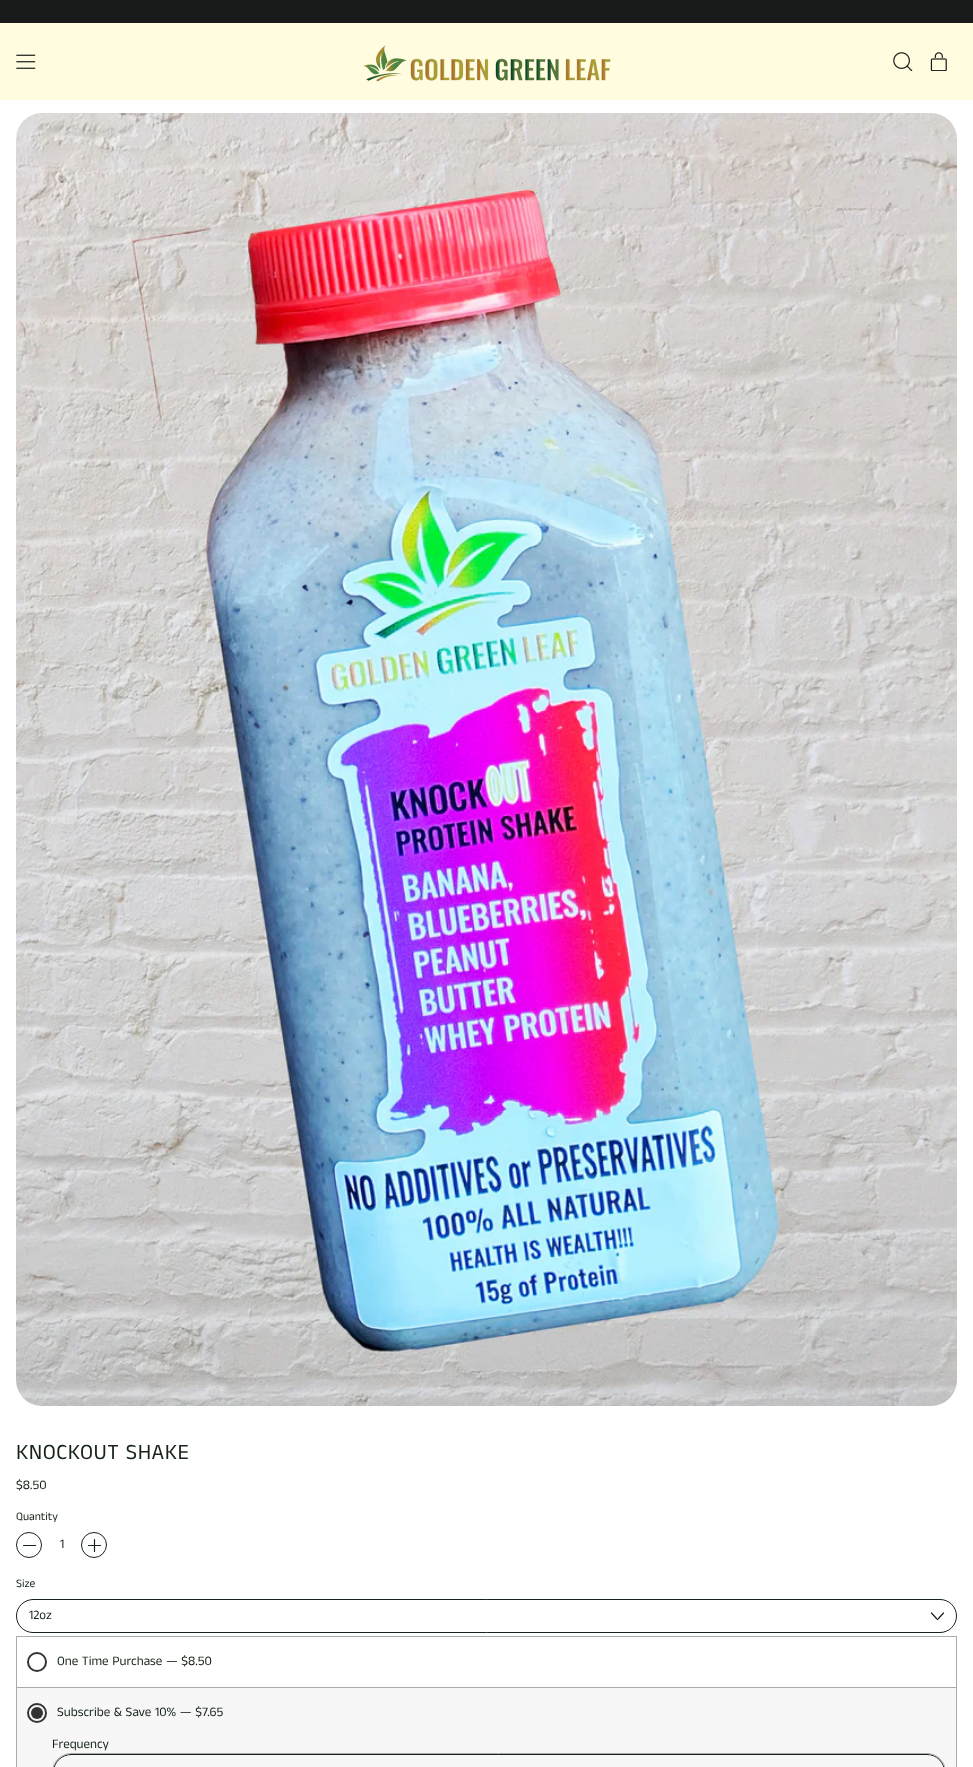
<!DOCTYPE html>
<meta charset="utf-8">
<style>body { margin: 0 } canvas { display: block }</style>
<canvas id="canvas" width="973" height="1767"></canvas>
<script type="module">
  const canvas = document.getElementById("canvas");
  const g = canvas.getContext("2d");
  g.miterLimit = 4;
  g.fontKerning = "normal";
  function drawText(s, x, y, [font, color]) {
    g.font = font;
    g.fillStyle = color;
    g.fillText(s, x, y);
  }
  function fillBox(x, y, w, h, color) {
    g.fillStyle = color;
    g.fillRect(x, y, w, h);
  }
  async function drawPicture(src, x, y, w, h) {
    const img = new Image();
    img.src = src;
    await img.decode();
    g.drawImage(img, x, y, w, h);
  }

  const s1 = ["21.75px Anek Tamil", "#162317"];
  const s2 = ["13px Anek Tamil", "#162317"];
  const s3 = ["11.5px Anek Tamil", "#162317"];

  fillBox(0, 0, 973, 1767, "#FFFFFF");
  fillBox(0, 0, 973, 23, "#181B1A");
  fillBox(0, 23, 973, 77, "#FFFCDF");
  await drawPicture("pic1.png", 16, 54, 20, 15);
  await drawPicture("pic2.png", 363, 45, 248, 37);
  await drawPicture("pic3.png", 893, 52, 20, 19);
  await drawPicture("pic4.png", 930, 52, 17, 19);
  await drawPicture("pic5.png", 16, 113, 941, 1293);
  g.letterSpacing = "0.5px";
  drawText("KNOCKOUT SHAKE", 16, 1459, s1);
  g.letterSpacing = "0px";
  drawText("$8.50", 16, 1489, s2);
  drawText("Quantity", 16, 1520, s3);
  g.beginPath();
  g.arc(29, 1545, 12.5, 0, Math.PI * 2);
  g.strokeStyle = "#162317";
  g.stroke();
  g.beginPath();
  g.moveTo(35.5, 1545.5);
  g.lineTo(23.5, 1545.5);
  g.lineWidth = 1.2;
  g.lineCap = "round";
  g.lineJoin = "round";
  g.stroke();
  drawText("1", 60, 1548, s2);
  g.beginPath();
  g.arc(94, 1545, 12.5, 0, Math.PI * 2);
  g.lineWidth = 1;
  g.stroke();
  g.beginPath();
  g.moveTo(94.5, 1539.5);
  g.lineTo(94.5, 1551.5);
  g.moveTo(100.5, 1545.5);
  g.lineTo(88.5, 1545.5);
  g.lineWidth = 1.2;
  g.stroke();
  drawText("Size", 16, 1587, s3);
  g.beginPath();
  g.moveTo(931.5, 1613);
  g.lineTo(936.5, 1618.5);
  g.bezierCurveTo(937.5, 1620, 937.5, 1620, 938.5, 1618.5);
  g.lineTo(943.5, 1613);
  g.stroke();
  g.beginPath();
  g.roundRect(16.5, 1599.5, 940, 33, 16.5);
  g.lineWidth = 1;
  g.lineJoin = "miter";
  g.stroke();
  drawText("12oz", 29, 1619, s2);
  g.strokeStyle = "#AAAAAA";
  g.strokeRect(16.5, 1636.5, 940, 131);
  fillBox(17, 1687, 939, 1, "#AAAAAA");
  g.beginPath();
  g.arc(37, 1662, 9, 0, Math.PI * 2);
  g.strokeStyle = "#333333";
  g.lineWidth = 2;
  g.stroke();
  drawText("One Time Purchase — $8.50", 57, 1665, s2);
  fillBox(17, 1688, 939, 79, "#F7F7F7");
  g.beginPath();
  g.arc(37, 1713, 9, 0, Math.PI * 2);
  g.stroke();
  g.fillStyle = "#333333";
  g.beginPath();
  g.arc(37, 1713, 6, 0, Math.PI * 2);
  g.fill();
  drawText("Subscribe & Save 10% — $7.65", 57, 1716, s2);
  drawText("Frequency", 52, 1748, s2);
  g.beginPath();
  g.roundRect(53.5, 1754.5, 891, 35, 21.5);
  g.strokeStyle = "#162317";
  g.lineWidth = 1;
  g.stroke();
  g.beginPath();
  g.roundRect(52.5, 1753.5, 893, 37, 22.5);
  g.strokeStyle = "#AAAAAA";
  g.stroke();
</script>
